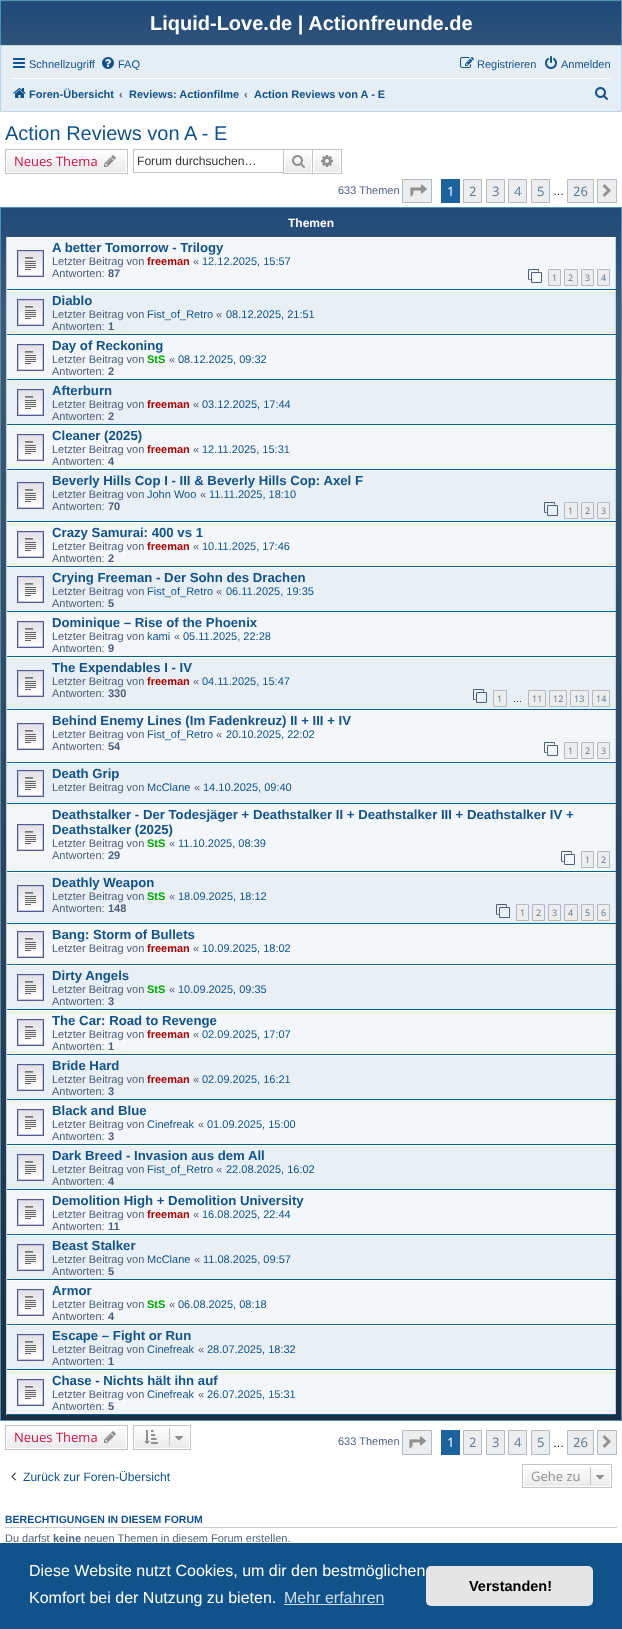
<!DOCTYPE html>
<meta charset="utf-8">
<style>body { margin: 0 } canvas { display: block }</style>
<canvas id="canvas" width="622" height="1629"></canvas>
<script type="module">
  const canvas = document.getElementById("canvas");
  const g = canvas.getContext("2d");
  g.miterLimit = 4;
  g.fontKerning = "normal";
  function drawText(s, x, y, [font, color]) {
    g.font = font;
    g.fillStyle = color;
    g.fillText(s, x, y);
  }
  function fillBox(x, y, w, h, color) {
    g.fillStyle = color;
    g.fillRect(x, y, w, h);
  }
  function fillRounded(x, y, w, h, r, color) {
    g.fillStyle = color;
    g.beginPath();
    g.roundRect(x, y, w, h, r);
    g.fill();
  }
  async function drawPicture(src, x, y, w, h) {
    const img = new Image();
    img.src = src;
    await img.decode();
    g.drawImage(img, x, y, w, h);
  }
  let gradient;

  const s1 = ["bold 20px Liberation Sans", "#FFFFFF"];
  const s2 = ["11px Liberation Sans", "#105289"];
  const s3 = ["bold 11px Liberation Sans", "#105289"];
  const s4 = ["bold 11px Liberation Sans", "#536482"];
  const s5 = ["20px Liberation Sans", "#105289"];
  const s6 = ["13px Open Sans", "#D31141"];
  const s7 = ["12.1px Liberation Sans", "#333333"];
  const s8 = ["11px Liberation Sans", "#536482"];
  const s9 = ["13px Open Sans", "#FFFFFF"];
  const s10 = ["13px Open Sans", "#5C758C"];
  const s11 = ["11px Liberation Sans", "#000000"];
  const s12 = ["bold 12px Liberation Sans", "#FFFFFF"];
  const s13 = ["bold 13.2px Liberation Sans", "#105289"];
  const s14 = ["11px Liberation Sans", "#4C5D77"];
  const s15 = ["bold 11px Liberation Sans", "#AA0000"];
  const s16 = ["bold 11px Liberation Sans", "#4C5D77"];
  const s17 = ["9px Open Sans", "#5C758C"];
  const s18 = ["bold 11px Liberation Sans", "#00AA00"];
  const s19 = ["9px Liberation Sans", "#000000"];
  const s20 = ["12.1px Liberation Sans", "#105289"];
  const s21 = ["13px Open Sans", "#8F8F8F"];
  const s22 = ["bold 10.5px Liberation Sans", "#115098"];
  const s23 = ["16px Liberation Sans", "#FFFFFF"];
  const s24 = ["16px Liberation Sans", "#CFDDE8"];
  const s25 = ["bold 14.5px Liberation Sans", "#000000"];

  fillBox(0, 0, 622, 1629, "#FFFFFF");
  gradient = g.createLinearGradient(311, 1, 311, 93);
  gradient.addColorStop(0, "#315275");
  gradient.addColorStop(0.02, "#1F4A7A");
  gradient.addColorStop(1, "#425A75");
  gradient.addColorStop(1, "#1C2E43");
  g.fillStyle = gradient;
  g.fillRect(1, 1, 620, 44);
  g.strokeStyle = "#4F91B6";
  g.strokeRect(0.5, 0.5, 621, 45);
  drawText("Liquid-Love.de | Actionfreunde.de", 150, 30, s1);
  g.fillStyle = "#E5EEF5";
  g.beginPath();
  g.rect(0.5, 45.5, 621, 66);
  g.fill();
  g.strokeStyle = "#BCD4E3";
  g.stroke();
  await drawPicture("pic1.png", 13, 58, 12, 10);
  drawText("Schnellzugriff", 29, 68, s2);
  await drawPicture("pic2.png", 102, 57, 12, 12);
  drawText("FAQ", 118, 68, s2);
  await drawPicture("pic3.png", 460, 57, 14, 11);
  drawText("Registrieren", 477, 68, s2);
  await drawPicture("pic4.png", 545, 56, 12, 13);
  drawText("Anmelden", 561, 68, s2);
  fillBox(11, 78, 600, 1, "#FFFFFF");
  await drawPicture("pic5.png", 13, 88, 13, 10);
  drawText("Foren-Übersicht", 29, 98, s3);
  drawText("‹", 119, 98, s4);
  drawText("Reviews: Actionfilme", 129, 98, s3);
  drawText("‹", 244, 98, s4);
  drawText("Action Reviews von A - E", 254, 98, s3);
  await drawPicture("pic6.png", 595, 87, 13, 13);
  drawText("Action Reviews von A - E", 5, 140, s5);
  gradient = g.createLinearGradient(67, 150, 67, 173);
  gradient.addColorStop(0, "#FFFFFF");
  gradient.addColorStop(1, "#E9E9E9");
  g.fillStyle = gradient;
  g.fillRect(7, 153, 119, 19);
  g.strokeStyle = "#C7C3BF";
  g.strokeRect(5.5, 149.5, 122, 24);
  drawText("Neues Thema", 14, 166, s6);
  await drawPicture("pic7.png", 104, 155, 12, 12);
  fillBox(133, 149, 150, 1, "#C7C3BF");
  fillBox(133, 172, 150, 1, "#C7C3BF");
  fillBox(133, 149, 1, 24, "#C7C3BF");
  drawText("Forum durchsuchen…", 137, 165, s7);
  gradient = g.createLinearGradient(298, 150, 298, 173);
  gradient.addColorStop(0, "#FFFFFF");
  gradient.addColorStop(1, "#E9E9E9");
  g.fillStyle = gradient;
  g.fillRect(285, 153, 26, 19);
  g.strokeRect(283.5, 149.5, 29, 24);
  await drawPicture("pic8.png", 292, 155, 13, 13);
  gradient = g.createLinearGradient(327, 150, 327, 173);
  gradient.addColorStop(0, "#FFFFFF");
  gradient.addColorStop(1, "#E9E9E9");
  g.fillStyle = gradient;
  g.fillRect(314, 153, 26, 19);
  fillBox(313, 149, 29, 1, "#C7C3BF");
  fillBox(341, 149, 1, 25, "#C7C3BF");
  fillBox(313, 173, 29, 1, "#C7C3BF");
  await drawPicture("pic9.png", 321, 155, 12, 12);
  drawText("633 Themen", 338, 194, s8);
  g.fillStyle = "#ECEDEE";
  g.beginPath();
  g.rect(402.5, 179.5, 29, 23);
  g.fill();
  g.strokeStyle = "#B4BAC0";
  g.stroke();
  await drawPicture("pic10.png", 410, 184, 17, 13);
  fillBox(441, 179, 19, 24, "#1B629E");
  drawText("1", 447, 196, s9);
  g.fillStyle = "#ECEDEE";
  g.beginPath();
  g.rect(463.5, 179.5, 18, 23);
  g.fill();
  g.stroke();
  drawText("2", 469, 196, s10);
  g.fillStyle = "#ECEDEE";
  g.beginPath();
  g.rect(486.5, 179.5, 18, 23);
  g.fill();
  g.stroke();
  drawText("3", 492, 196, s10);
  g.fillStyle = "#ECEDEE";
  g.beginPath();
  g.rect(508.5, 179.5, 18, 23);
  g.fill();
  g.stroke();
  drawText("4", 514, 196, s10);
  g.fillStyle = "#ECEDEE";
  g.beginPath();
  g.rect(531.5, 179.5, 18, 23);
  g.fill();
  g.stroke();
  drawText("5", 537, 196, s10);
  drawText("…", 553, 195, s11);
  g.fillStyle = "#ECEDEE";
  g.beginPath();
  g.rect(567.5, 179.5, 26, 23);
  g.fill();
  g.stroke();
  drawText("26", 573, 196, s10);
  g.fillStyle = "#ECEDEE";
  g.beginPath();
  g.rect(597.5, 179.5, 19, 23);
  g.fill();
  g.stroke();
  await drawPicture("pic11.png", 602, 184, 9, 13);
  gradient = g.createLinearGradient(311, 208, 311, 1420);
  gradient.addColorStop(0, "#315275");
  gradient.addColorStop(0, "#1F4A7A");
  gradient.addColorStop(0.08, "#425A75");
  gradient.addColorStop(1, "#1C2E43");
  g.fillStyle = gradient;
  g.fillRect(1, 208, 620, 1212);
  g.strokeStyle = "#4F91B6";
  g.strokeRect(0.5, 207.5, 621, 1213);
  drawText("Themen", 288, 227, s12);
  fillBox(7, 238, 608, 51, "#F3F7FA");
  fillBox(6, 237, 610, 1, "#FFFFFF");
  fillBox(615, 237, 1, 53, "#BCD4E3");
  fillBox(6, 289, 610, 1, "#00608F");
  fillBox(6, 237, 1, 53, "#BCD4E3");
  await drawPicture("pic12.png", 17, 250, 27, 27);
  drawText("A better Tomorrow - Trilogy", 52, 252, s13);
  drawText("Letzter Beitrag von", 52, 265, s14);
  drawText("freeman", 147, 265, s15);
  drawText("«", 193, 265, s14);
  drawText("12.12.2025, 15:57", 202, 265, s2);
  drawText("Antworten:", 52, 277, s14);
  drawText("87", 108, 277, s16);
  await drawPicture("pic13.png", 528, 269, 14, 14);
  g.fillStyle = "#ECEDEE";
  g.beginPath();
  g.rect(548.5, 269.5, 12, 16);
  g.fill();
  g.strokeStyle = "#B4BAC0";
  g.stroke();
  drawText("1", 552, 281, s17);
  g.fillStyle = "#ECEDEE";
  g.beginPath();
  g.rect(564.5, 269.5, 13, 16);
  g.fill();
  g.stroke();
  drawText("2", 568, 281, s17);
  g.fillStyle = "#ECEDEE";
  g.beginPath();
  g.rect(581.5, 269.5, 12, 16);
  g.fill();
  g.stroke();
  drawText("3", 585, 281, s17);
  g.fillStyle = "#ECEDEE";
  g.beginPath();
  g.rect(597.5, 269.5, 12, 16);
  g.fill();
  g.stroke();
  drawText("4", 601, 281, s17);
  fillBox(7, 291, 608, 43, "#E9F0F5");
  fillBox(6, 290, 610, 1, "#FFFFFF");
  fillBox(615, 290, 1, 45, "#BCD4E3");
  fillBox(6, 334, 610, 1, "#00608F");
  fillBox(6, 290, 1, 45, "#BCD4E3");
  await drawPicture("pic12.png", 17, 299, 27, 27);
  drawText("Diablo", 52, 305, s13);
  drawText("Letzter Beitrag von", 52, 318, s14);
  drawText("Fist_of_Retro", 147, 318, s2);
  drawText("«", 216, 318, s14);
  drawText("08.12.2025, 21:51", 226, 318, s2);
  drawText("Antworten:", 52, 330, s14);
  drawText("1", 108, 330, s16);
  fillBox(7, 336, 608, 43, "#F3F7FA");
  fillBox(6, 335, 610, 1, "#FFFFFF");
  fillBox(615, 335, 1, 45, "#BCD4E3");
  fillBox(6, 379, 610, 1, "#00608F");
  fillBox(6, 335, 1, 45, "#BCD4E3");
  await drawPicture("pic12.png", 17, 344, 27, 27);
  drawText("Day of Reckoning", 52, 350, s13);
  drawText("Letzter Beitrag von", 52, 363, s14);
  drawText("StS", 147, 363, s18);
  drawText("«", 169, 363, s14);
  drawText("08.12.2025, 09:32", 178, 363, s2);
  drawText("Antworten:", 52, 375, s14);
  drawText("2", 108, 375, s16);
  fillBox(7, 381, 608, 43, "#E9F0F5");
  fillBox(6, 380, 610, 1, "#FFFFFF");
  fillBox(615, 380, 1, 45, "#BCD4E3");
  fillBox(6, 424, 610, 1, "#00608F");
  fillBox(6, 380, 1, 45, "#BCD4E3");
  await drawPicture("pic12.png", 17, 389, 27, 27);
  drawText("Afterburn", 52, 395, s13);
  drawText("Letzter Beitrag von", 52, 408, s14);
  drawText("freeman", 147, 408, s15);
  drawText("«", 193, 408, s14);
  drawText("03.12.2025, 17:44", 202, 408, s2);
  drawText("Antworten:", 52, 420, s14);
  drawText("2", 108, 420, s16);
  fillBox(7, 426, 608, 43, "#F3F7FA");
  fillBox(6, 425, 610, 1, "#FFFFFF");
  fillBox(615, 425, 1, 45, "#BCD4E3");
  fillBox(6, 469, 610, 1, "#00608F");
  fillBox(6, 425, 1, 45, "#BCD4E3");
  await drawPicture("pic12.png", 17, 434, 27, 27);
  drawText("Cleaner (2025)", 52, 440, s13);
  drawText("Letzter Beitrag von", 52, 453, s14);
  drawText("freeman", 147, 453, s15);
  drawText("«", 193, 453, s14);
  drawText("12.11.2025, 15:31", 202, 453, s2);
  drawText("Antworten:", 52, 465, s14);
  drawText("4", 108, 465, s16);
  fillBox(7, 471, 608, 50, "#E9F0F5");
  fillBox(6, 470, 610, 1, "#FFFFFF");
  fillBox(615, 470, 1, 52, "#BCD4E3");
  fillBox(6, 521, 610, 1, "#00608F");
  fillBox(6, 470, 1, 52, "#BCD4E3");
  await drawPicture("pic12.png", 17, 482, 27, 27);
  drawText("Beverly Hills Cop I - III & Beverly Hills Cop: Axel F", 52, 485, s13);
  drawText("Letzter Beitrag von", 52, 498, s14);
  drawText("John Woo", 147, 498, s2);
  drawText("«", 200, 498, s14);
  drawText("11.11.2025, 18:10", 209, 498, s2);
  drawText("Antworten:", 52, 510, s14);
  drawText("70", 108, 510, s16);
  await drawPicture("pic14.png", 544, 502, 14, 14);
  g.fillStyle = "#ECEDEE";
  g.beginPath();
  g.rect(564.5, 502.5, 13, 16);
  g.fill();
  g.stroke();
  drawText("1", 568, 514, s17);
  g.fillStyle = "#ECEDEE";
  g.beginPath();
  g.rect(581.5, 502.5, 12, 16);
  g.fill();
  g.stroke();
  drawText("2", 585, 514, s17);
  g.fillStyle = "#ECEDEE";
  g.beginPath();
  g.rect(597.5, 502.5, 12, 16);
  g.fill();
  g.stroke();
  drawText("3", 601, 514, s17);
  fillBox(7, 523, 608, 43, "#F3F7FA");
  fillBox(6, 522, 610, 1, "#FFFFFF");
  fillBox(615, 522, 1, 45, "#BCD4E3");
  fillBox(6, 566, 610, 1, "#00608F");
  fillBox(6, 522, 1, 45, "#BCD4E3");
  await drawPicture("pic12.png", 17, 531, 27, 27);
  drawText("Crazy Samurai: 400 vs 1", 52, 537, s13);
  drawText("Letzter Beitrag von", 52, 550, s14);
  drawText("freeman", 147, 550, s15);
  drawText("«", 193, 550, s14);
  drawText("10.11.2025, 17:46", 202, 550, s2);
  drawText("Antworten:", 52, 562, s14);
  drawText("2", 108, 562, s16);
  fillBox(7, 568, 608, 43, "#E9F0F5");
  fillBox(6, 567, 610, 1, "#FFFFFF");
  fillBox(615, 567, 1, 45, "#BCD4E3");
  fillBox(6, 611, 610, 1, "#00608F");
  fillBox(6, 567, 1, 45, "#BCD4E3");
  await drawPicture("pic12.png", 17, 576, 27, 27);
  drawText("Crying Freeman - Der Sohn des Drachen", 52, 582, s13);
  drawText("Letzter Beitrag von", 52, 595, s14);
  drawText("Fist_of_Retro", 147, 595, s2);
  drawText("«", 216, 595, s14);
  drawText("06.11.2025, 19:35", 226, 595, s2);
  drawText("Antworten:", 52, 607, s14);
  drawText("5", 108, 607, s16);
  fillBox(7, 613, 608, 43, "#F3F7FA");
  fillBox(6, 612, 610, 1, "#FFFFFF");
  fillBox(615, 612, 1, 45, "#BCD4E3");
  fillBox(6, 656, 610, 1, "#00608F");
  fillBox(6, 612, 1, 45, "#BCD4E3");
  await drawPicture("pic12.png", 17, 621, 27, 27);
  drawText("Dominique – Rise of the Phoenix", 52, 627, s13);
  drawText("Letzter Beitrag von", 52, 640, s14);
  drawText("kami", 147, 640, s2);
  drawText("«", 174, 640, s14);
  drawText("05.11.2025, 22:28", 183, 640, s2);
  drawText("Antworten:", 52, 652, s14);
  drawText("9", 108, 652, s16);
  fillBox(7, 658, 608, 51, "#E9F0F5");
  fillBox(6, 657, 610, 1, "#FFFFFF");
  fillBox(615, 657, 1, 53, "#BCD4E3");
  fillBox(6, 709, 610, 1, "#00608F");
  fillBox(6, 657, 1, 53, "#BCD4E3");
  await drawPicture("pic12.png", 17, 670, 27, 27);
  drawText("The Expendables I - IV", 52, 672, s13);
  drawText("Letzter Beitrag von", 52, 685, s14);
  drawText("freeman", 147, 685, s15);
  drawText("«", 193, 685, s14);
  drawText("04.11.2025, 15:47", 202, 685, s2);
  drawText("Antworten:", 52, 697, s14);
  drawText("330", 108, 697, s16);
  await drawPicture("pic14.png", 473, 689, 14, 14);
  g.fillStyle = "#ECEDEE";
  g.beginPath();
  g.rect(493.5, 690.5, 13, 16);
  g.fill();
  g.stroke();
  drawText("1", 497, 702, s17);
  drawText("…", 513, 702, s19);
  g.fillStyle = "#ECEDEE";
  g.beginPath();
  g.rect(528.5, 690.5, 17, 16);
  g.fill();
  g.stroke();
  drawText("11", 532, 702, s17);
  g.fillStyle = "#ECEDEE";
  g.beginPath();
  g.rect(549.5, 690.5, 17, 16);
  g.fill();
  g.stroke();
  drawText("12", 553, 702, s17);
  g.fillStyle = "#ECEDEE";
  g.beginPath();
  g.rect(570.5, 690.5, 18, 16);
  g.fill();
  g.stroke();
  drawText("13", 574, 702, s17);
  g.fillStyle = "#ECEDEE";
  g.beginPath();
  g.rect(592.5, 690.5, 17, 16);
  g.fill();
  g.stroke();
  drawText("14", 596, 702, s17);
  fillBox(7, 711, 608, 51, "#F3F7FA");
  fillBox(6, 710, 610, 1, "#FFFFFF");
  fillBox(615, 710, 1, 53, "#BCD4E3");
  fillBox(6, 762, 610, 1, "#00608F");
  fillBox(6, 710, 1, 53, "#BCD4E3");
  await drawPicture("pic12.png", 17, 723, 27, 27);
  drawText("Behind Enemy Lines (Im Fadenkreuz) II + III + IV", 52, 725, s13);
  drawText("Letzter Beitrag von", 52, 738, s14);
  drawText("Fist_of_Retro", 147, 738, s2);
  drawText("«", 216, 738, s14);
  drawText("20.10.2025, 22:02", 226, 738, s2);
  drawText("Antworten:", 52, 750, s14);
  drawText("54", 108, 750, s16);
  await drawPicture("pic13.png", 544, 742, 14, 14);
  g.fillStyle = "#ECEDEE";
  g.beginPath();
  g.rect(564.5, 742.5, 13, 16);
  g.fill();
  g.stroke();
  drawText("1", 568, 754, s17);
  g.fillStyle = "#ECEDEE";
  g.beginPath();
  g.rect(581.5, 742.5, 12, 16);
  g.fill();
  g.stroke();
  drawText("2", 585, 754, s17);
  g.fillStyle = "#ECEDEE";
  g.beginPath();
  g.rect(597.5, 742.5, 12, 16);
  g.fill();
  g.stroke();
  drawText("3", 601, 754, s17);
  fillBox(7, 764, 608, 39, "#E9F0F5");
  fillBox(6, 763, 610, 1, "#FFFFFF");
  fillBox(615, 763, 1, 41, "#BCD4E3");
  fillBox(6, 803, 610, 1, "#00608F");
  fillBox(6, 763, 1, 41, "#BCD4E3");
  await drawPicture("pic12.png", 17, 770, 27, 27);
  drawText("Death Grip", 52, 778, s13);
  drawText("Letzter Beitrag von", 52, 791, s14);
  drawText("McClane", 147, 791, s2);
  drawText("«", 194, 791, s14);
  drawText("14.10.2025, 09:40", 203, 791, s2);
  fillBox(7, 805, 608, 66, "#F3F7FA");
  fillBox(6, 804, 610, 1, "#FFFFFF");
  fillBox(615, 804, 1, 68, "#BCD4E3");
  fillBox(6, 871, 610, 1, "#00608F");
  fillBox(6, 804, 1, 68, "#BCD4E3");
  await drawPicture("pic12.png", 17, 824, 27, 27);
  drawText("Deathstalker - Der Todesjäger + Deathstalker II + Deathstalker III + Deathstalker IV +", 52, 819, s13);
  drawText("Deathstalker (2025)", 52, 834, s13);
  drawText("Letzter Beitrag von", 52, 847, s14);
  drawText("StS", 147, 847, s18);
  drawText("«", 169, 847, s14);
  drawText("11.10.2025, 08:39", 178, 847, s2);
  drawText("Antworten:", 52, 859, s14);
  drawText("29", 108, 859, s16);
  await drawPicture("pic13.png", 561, 851, 14, 14);
  g.fillStyle = "#ECEDEE";
  g.beginPath();
  g.rect(581.5, 851.5, 12, 16);
  g.fill();
  g.stroke();
  drawText("1", 585, 863, s17);
  g.fillStyle = "#ECEDEE";
  g.beginPath();
  g.rect(597.5, 851.5, 12, 16);
  g.fill();
  g.stroke();
  drawText("2", 601, 863, s17);
  fillBox(7, 873, 608, 50, "#E9F0F5");
  fillBox(6, 872, 610, 1, "#FFFFFF");
  fillBox(615, 872, 1, 52, "#BCD4E3");
  fillBox(6, 923, 610, 1, "#00608F");
  fillBox(6, 872, 1, 52, "#BCD4E3");
  await drawPicture("pic12.png", 17, 885, 27, 27);
  drawText("Deathly Weapon", 52, 887, s13);
  drawText("Letzter Beitrag von", 52, 900, s14);
  drawText("StS", 147, 900, s18);
  drawText("«", 169, 900, s14);
  drawText("18.09.2025, 18:12", 178, 900, s2);
  drawText("Antworten:", 52, 912, s14);
  drawText("148", 108, 912, s16);
  await drawPicture("pic14.png", 496, 904, 14, 14);
  g.fillStyle = "#ECEDEE";
  g.beginPath();
  g.rect(516.5, 904.5, 12, 16);
  g.fill();
  g.stroke();
  drawText("1", 520, 916, s17);
  g.fillStyle = "#ECEDEE";
  g.beginPath();
  g.rect(532.5, 904.5, 12, 16);
  g.fill();
  g.stroke();
  drawText("2", 536, 916, s17);
  g.fillStyle = "#ECEDEE";
  g.beginPath();
  g.rect(548.5, 904.5, 12, 16);
  g.fill();
  g.stroke();
  drawText("3", 552, 916, s17);
  g.fillStyle = "#ECEDEE";
  g.beginPath();
  g.rect(564.5, 904.5, 13, 16);
  g.fill();
  g.stroke();
  drawText("4", 568, 916, s17);
  g.fillStyle = "#ECEDEE";
  g.beginPath();
  g.rect(581.5, 904.5, 12, 16);
  g.fill();
  g.stroke();
  drawText("5", 585, 916, s17);
  g.fillStyle = "#ECEDEE";
  g.beginPath();
  g.rect(597.5, 904.5, 12, 16);
  g.fill();
  g.stroke();
  drawText("6", 601, 916, s17);
  fillBox(7, 925, 608, 39, "#F3F7FA");
  fillBox(6, 924, 610, 1, "#FFFFFF");
  fillBox(615, 924, 1, 41, "#BCD4E3");
  fillBox(6, 964, 610, 1, "#00608F");
  fillBox(6, 924, 1, 41, "#BCD4E3");
  await drawPicture("pic12.png", 17, 931, 27, 27);
  drawText("Bang: Storm of Bullets", 52, 939, s13);
  drawText("Letzter Beitrag von", 52, 952, s14);
  drawText("freeman", 147, 952, s15);
  drawText("«", 193, 952, s14);
  drawText("10.09.2025, 18:02", 202, 952, s2);
  fillBox(7, 966, 608, 43, "#E9F0F5");
  fillBox(6, 965, 610, 1, "#FFFFFF");
  fillBox(615, 965, 1, 45, "#BCD4E3");
  fillBox(6, 1009, 610, 1, "#00608F");
  fillBox(6, 965, 1, 45, "#BCD4E3");
  await drawPicture("pic12.png", 17, 974, 27, 27);
  drawText("Dirty Angels", 52, 980, s13);
  drawText("Letzter Beitrag von", 52, 993, s14);
  drawText("StS", 147, 993, s18);
  drawText("«", 169, 993, s14);
  drawText("10.09.2025, 09:35", 178, 993, s2);
  drawText("Antworten:", 52, 1005, s14);
  drawText("3", 108, 1005, s16);
  fillBox(7, 1011, 608, 43, "#F3F7FA");
  fillBox(6, 1010, 610, 1, "#FFFFFF");
  fillBox(615, 1010, 1, 45, "#BCD4E3");
  fillBox(6, 1054, 610, 1, "#00608F");
  fillBox(6, 1010, 1, 45, "#BCD4E3");
  await drawPicture("pic12.png", 17, 1019, 27, 27);
  drawText("The Car: Road to Revenge", 52, 1025, s13);
  drawText("Letzter Beitrag von", 52, 1038, s14);
  drawText("freeman", 147, 1038, s15);
  drawText("«", 193, 1038, s14);
  drawText("02.09.2025, 17:07", 202, 1038, s2);
  drawText("Antworten:", 52, 1050, s14);
  drawText("1", 108, 1050, s16);
  fillBox(7, 1056, 608, 43, "#E9F0F5");
  fillBox(6, 1055, 610, 1, "#FFFFFF");
  fillBox(615, 1055, 1, 45, "#BCD4E3");
  fillBox(6, 1099, 610, 1, "#00608F");
  fillBox(6, 1055, 1, 45, "#BCD4E3");
  await drawPicture("pic12.png", 17, 1064, 27, 27);
  drawText("Bride Hard", 52, 1070, s13);
  drawText("Letzter Beitrag von", 52, 1083, s14);
  drawText("freeman", 147, 1083, s15);
  drawText("«", 193, 1083, s14);
  drawText("02.09.2025, 16:21", 202, 1083, s2);
  drawText("Antworten:", 52, 1095, s14);
  drawText("3", 108, 1095, s16);
  fillBox(7, 1101, 608, 43, "#F3F7FA");
  fillBox(6, 1100, 610, 1, "#FFFFFF");
  fillBox(615, 1100, 1, 45, "#BCD4E3");
  fillBox(6, 1144, 610, 1, "#00608F");
  fillBox(6, 1100, 1, 45, "#BCD4E3");
  await drawPicture("pic12.png", 17, 1109, 27, 27);
  drawText("Black and Blue", 52, 1115, s13);
  drawText("Letzter Beitrag von", 52, 1128, s14);
  drawText("Cinefreak", 147, 1128, s2);
  drawText("«", 198, 1128, s14);
  drawText("01.09.2025, 15:00", 207, 1128, s2);
  drawText("Antworten:", 52, 1140, s14);
  drawText("3", 108, 1140, s16);
  fillBox(7, 1146, 608, 43, "#E9F0F5");
  fillBox(6, 1145, 610, 1, "#FFFFFF");
  fillBox(615, 1145, 1, 45, "#BCD4E3");
  fillBox(6, 1189, 610, 1, "#00608F");
  fillBox(6, 1145, 1, 45, "#BCD4E3");
  await drawPicture("pic12.png", 17, 1154, 27, 27);
  drawText("Dark Breed - Invasion aus dem All", 52, 1160, s13);
  drawText("Letzter Beitrag von", 52, 1173, s14);
  drawText("Fist_of_Retro", 147, 1173, s2);
  drawText("«", 216, 1173, s14);
  drawText("22.08.2025, 16:02", 226, 1173, s2);
  drawText("Antworten:", 52, 1185, s14);
  drawText("4", 108, 1185, s16);
  fillBox(7, 1191, 608, 43, "#F3F7FA");
  fillBox(6, 1190, 610, 1, "#FFFFFF");
  fillBox(615, 1190, 1, 45, "#BCD4E3");
  fillBox(6, 1234, 610, 1, "#00608F");
  fillBox(6, 1190, 1, 45, "#BCD4E3");
  await drawPicture("pic12.png", 17, 1199, 27, 27);
  drawText("Demolition High + Demolition University", 52, 1205, s13);
  drawText("Letzter Beitrag von", 52, 1218, s14);
  drawText("freeman", 147, 1218, s15);
  drawText("«", 193, 1218, s14);
  drawText("16.08.2025, 22:44", 202, 1218, s2);
  drawText("Antworten:", 52, 1230, s14);
  drawText("11", 108, 1230, s16);
  fillBox(7, 1236, 608, 43, "#E9F0F5");
  fillBox(6, 1235, 610, 1, "#FFFFFF");
  fillBox(615, 1235, 1, 45, "#BCD4E3");
  fillBox(6, 1279, 610, 1, "#00608F");
  fillBox(6, 1235, 1, 45, "#BCD4E3");
  await drawPicture("pic12.png", 17, 1244, 27, 27);
  drawText("Beast Stalker", 52, 1250, s13);
  drawText("Letzter Beitrag von", 52, 1263, s14);
  drawText("McClane", 147, 1263, s2);
  drawText("«", 194, 1263, s14);
  drawText("11.08.2025, 09:57", 203, 1263, s2);
  drawText("Antworten:", 52, 1275, s14);
  drawText("5", 108, 1275, s16);
  fillBox(7, 1281, 608, 43, "#F3F7FA");
  fillBox(6, 1280, 610, 1, "#FFFFFF");
  fillBox(615, 1280, 1, 45, "#BCD4E3");
  fillBox(6, 1324, 610, 1, "#00608F");
  fillBox(6, 1280, 1, 45, "#BCD4E3");
  await drawPicture("pic12.png", 17, 1289, 27, 27);
  drawText("Armor", 52, 1295, s13);
  drawText("Letzter Beitrag von", 52, 1308, s14);
  drawText("StS", 147, 1308, s18);
  drawText("«", 169, 1308, s14);
  drawText("06.08.2025, 08:18", 178, 1308, s2);
  drawText("Antworten:", 52, 1320, s14);
  drawText("4", 108, 1320, s16);
  fillBox(7, 1326, 608, 43, "#E9F0F5");
  fillBox(6, 1325, 610, 1, "#FFFFFF");
  fillBox(615, 1325, 1, 45, "#BCD4E3");
  fillBox(6, 1369, 610, 1, "#00608F");
  fillBox(6, 1325, 1, 45, "#BCD4E3");
  await drawPicture("pic12.png", 17, 1334, 27, 27);
  drawText("Escape – Fight or Run", 52, 1340, s13);
  drawText("Letzter Beitrag von", 52, 1353, s14);
  drawText("Cinefreak", 147, 1353, s2);
  drawText("«", 198, 1353, s14);
  drawText("28.07.2025, 18:32", 207, 1353, s2);
  drawText("Antworten:", 52, 1365, s14);
  drawText("1", 108, 1365, s16);
  fillBox(7, 1371, 608, 43, "#F3F7FA");
  fillBox(6, 1370, 610, 1, "#FFFFFF");
  fillBox(615, 1370, 1, 45, "#BCD4E3");
  fillBox(6, 1414, 610, 1, "#00608F");
  fillBox(6, 1370, 1, 45, "#BCD4E3");
  await drawPicture("pic12.png", 17, 1379, 27, 27);
  drawText("Chase - Nichts hält ihn auf", 52, 1385, s13);
  drawText("Letzter Beitrag von", 52, 1398, s14);
  drawText("Cinefreak", 147, 1398, s2);
  drawText("«", 198, 1398, s14);
  drawText("26.07.2025, 15:31", 207, 1398, s2);
  drawText("Antworten:", 52, 1410, s14);
  drawText("5", 108, 1410, s16);
  gradient = g.createLinearGradient(67, 1426, 67, 1449);
  gradient.addColorStop(0, "#FFFFFF");
  gradient.addColorStop(1, "#E9E9E9");
  g.fillStyle = gradient;
  g.fillRect(7, 1429, 119, 19);
  g.strokeStyle = "#C7C3BF";
  g.strokeRect(5.5, 1425.5, 122, 24);
  drawText("Neues Thema", 14, 1442, s6);
  await drawPicture("pic7.png", 104, 1431, 12, 12);
  gradient = g.createLinearGradient(162, 1426, 162, 1449);
  gradient.addColorStop(0, "#FFFFFF");
  gradient.addColorStop(1, "#E9E9E9");
  g.fillStyle = gradient;
  g.fillRect(135, 1429, 54, 19);
  g.strokeRect(133.5, 1425.5, 57, 24);
  await drawPicture("pic15.png", 144, 1430, 14, 14);
  fillBox(169, 1428, 1, 18, "#C7C3BF");
  await drawPicture("pic16.png", 175, 1436, 8, 5);
  drawText("633 Themen", 338, 1445, s8);
  g.fillStyle = "#ECEDEE";
  g.beginPath();
  g.rect(402.5, 1430.5, 29, 24);
  g.fill();
  g.strokeStyle = "#B4BAC0";
  g.stroke();
  await drawPicture("pic17.png", 409, 1436, 17, 13);
  fillBox(441, 1430, 19, 25, "#1B629E");
  drawText("1", 447, 1447, s9);
  g.fillStyle = "#ECEDEE";
  g.beginPath();
  g.rect(463.5, 1430.5, 18, 24);
  g.fill();
  g.stroke();
  drawText("2", 469, 1447, s10);
  g.fillStyle = "#ECEDEE";
  g.beginPath();
  g.rect(486.5, 1430.5, 18, 24);
  g.fill();
  g.stroke();
  drawText("3", 492, 1447, s10);
  g.fillStyle = "#ECEDEE";
  g.beginPath();
  g.rect(508.5, 1430.5, 18, 24);
  g.fill();
  g.stroke();
  drawText("4", 514, 1447, s10);
  g.fillStyle = "#ECEDEE";
  g.beginPath();
  g.rect(531.5, 1430.5, 18, 24);
  g.fill();
  g.stroke();
  drawText("5", 537, 1447, s10);
  drawText("…", 553, 1447, s11);
  g.fillStyle = "#ECEDEE";
  g.beginPath();
  g.rect(567.5, 1430.5, 26, 24);
  g.fill();
  g.stroke();
  drawText("26", 573, 1447, s10);
  g.fillStyle = "#ECEDEE";
  g.beginPath();
  g.rect(597.5, 1430.5, 19, 24);
  g.fill();
  g.stroke();
  await drawPicture("pic11.png", 602, 1435, 9, 13);
  await drawPicture("pic18.png", 11, 1472, 5, 9);
  drawText("Zurück zur Foren-Übersicht", 23, 1481, s20);
  gradient = g.createLinearGradient(567, 1465, 567, 1487);
  gradient.addColorStop(0, "#FFFFFF");
  gradient.addColorStop(1, "#E9E9E9");
  g.fillStyle = gradient;
  g.fillRect(524, 1468, 86, 18);
  g.strokeStyle = "#C7C3BF";
  g.strokeRect(522.5, 1464.5, 89, 23);
  drawText("Gehe zu", 531, 1481, s21);
  fillBox(590, 1467, 1, 18, "#C7C3BF");
  await drawPicture("pic16.png", 596, 1475, 8, 5);
  fillBox(5, 1527, 612, 1, "#CCCCCC");
  drawText("BERECHTIGUNGEN IN DIESEM FORUM", 5, 1523, s22);
  drawText("Du darfst", 5, 1542, s8);
  drawText("keine", 53, 1542, s4);
  drawText("neuen Themen in diesem Forum erstellen.", 84, 1542, s8);
  fillBox(0, 1543, 622, 86, "#0F538A");
  drawText("Diese Website nutzt Cookies, um dir den bestmöglichen", 29, 1576, s23);
  drawText("Komfort bei der Nutzung zu bieten.", 29, 1603, s23);
  drawText("Mehr erfahren", 284, 1603, s24);
  fillBox(284, 1604, 100, 1, "#CFDDE8");
  fillRounded(426, 1566, 167, 40, 5, "#E5E5E5");
  drawText("Verstanden!", 469, 1591, s25);
</script>
